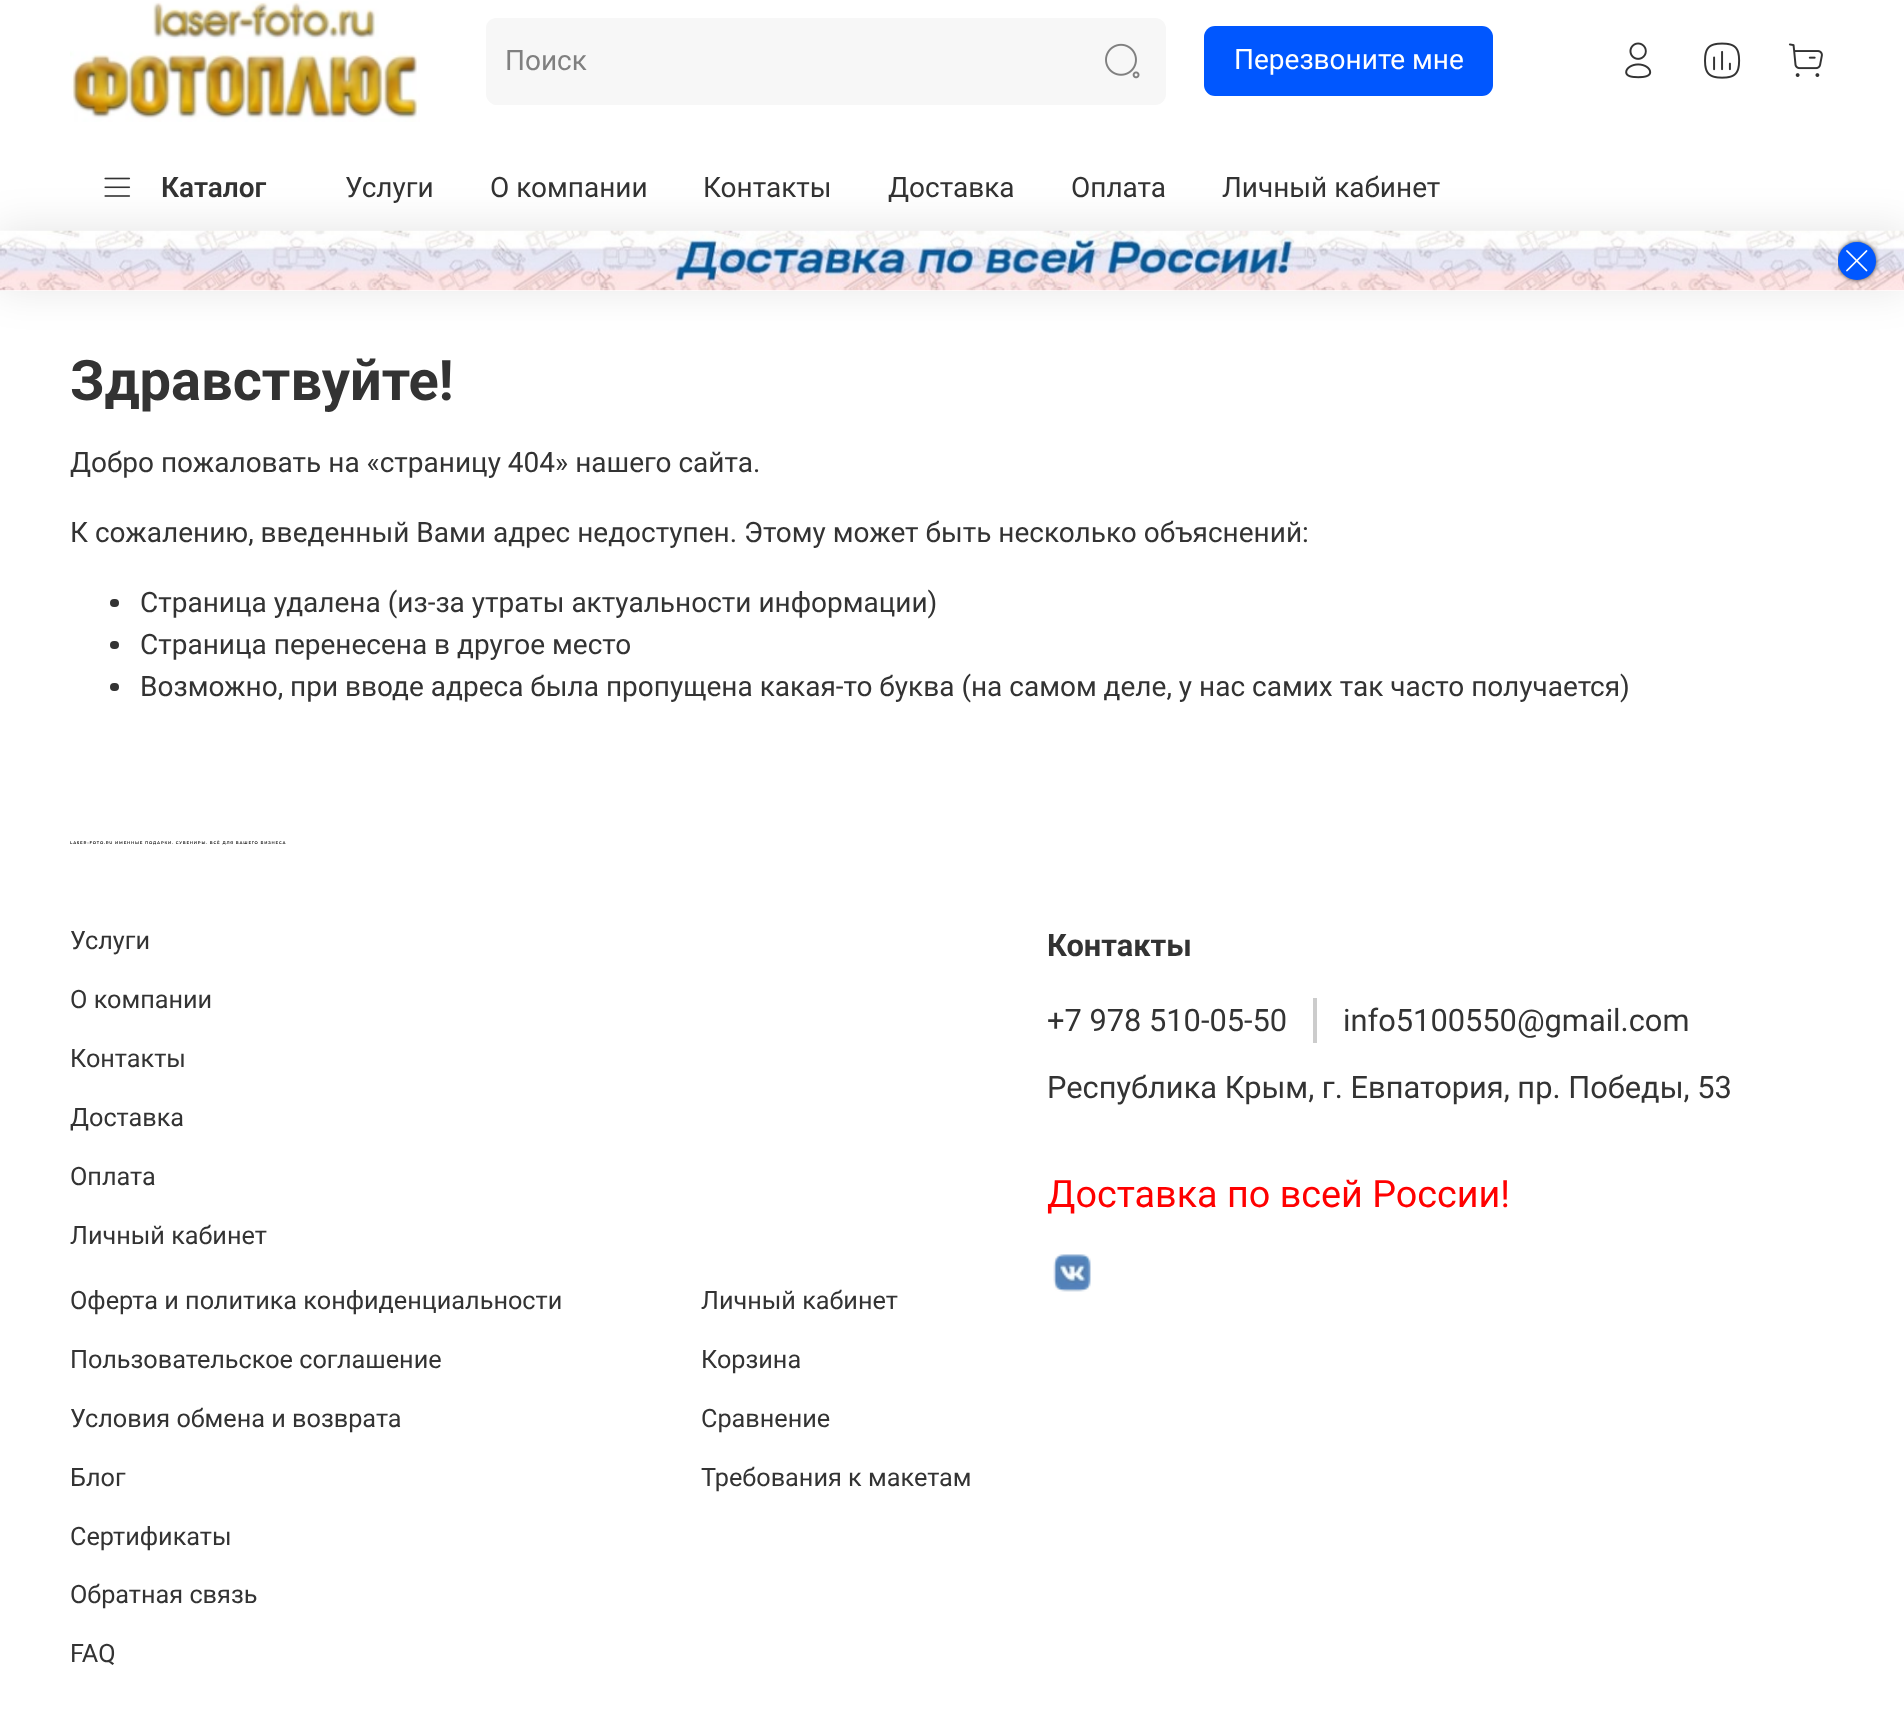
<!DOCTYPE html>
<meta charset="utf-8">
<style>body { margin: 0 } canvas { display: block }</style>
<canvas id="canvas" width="1904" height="1709"></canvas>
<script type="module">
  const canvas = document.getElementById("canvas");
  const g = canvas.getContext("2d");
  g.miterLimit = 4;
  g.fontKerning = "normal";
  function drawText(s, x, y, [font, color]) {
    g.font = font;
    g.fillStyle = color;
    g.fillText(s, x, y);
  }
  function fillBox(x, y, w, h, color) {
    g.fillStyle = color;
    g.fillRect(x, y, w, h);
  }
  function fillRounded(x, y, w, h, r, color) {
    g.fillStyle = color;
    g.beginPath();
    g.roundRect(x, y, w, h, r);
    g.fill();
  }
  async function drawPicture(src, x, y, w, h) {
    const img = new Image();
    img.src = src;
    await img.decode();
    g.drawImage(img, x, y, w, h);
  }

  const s1 = ["28px Roboto", "#808080"];
  const s2 = ["28px Roboto", "#FFFFFF"];
  const s3 = ["600 28px Roboto", "#333333"];
  const s4 = ["28px Roboto", "#333333"];
  const s5 = ["bold 56px Roboto", "#333333"];
  const s6 = ["25.25px Roboto", "#333333"];
  const s7 = ["bold 30.8px Roboto", "#333333"];
  const s8 = ["30.8px Roboto", "#333333"];
  const s9 = ["37.75px Roboto", "#FF0000"];

  fillBox(0, 0, 1904, 1709, "#FFFFFF");
  await drawPicture("pic1.png", 70, 1, 350, 121);
  g.fillStyle = "#F7F7F7";
  g.beginPath();
  g.roundRect(487, 18, 591, 87, [11, 0, 0, 11]);
  g.fill();
  g.beginPath();
  g.moveTo(497, 18);
  g.lineTo(1078, 18);
  g.lineTo(1078, 105);
  g.lineTo(497, 105);
  g.bezierCurveTo(491, 105, 486, 100, 486, 94);
  g.lineTo(486, 28);
  g.bezierCurveTo(486, 22, 491, 18, 497, 18);
  g.closePath();
  g.moveTo(497, 19);
  g.lineTo(1078, 19);
  g.lineTo(1078, 103);
  g.lineTo(497, 103);
  g.bezierCurveTo(492, 103, 488, 99, 488, 94);
  g.lineTo(488, 28);
  g.bezierCurveTo(488, 23, 492, 19, 497, 19);
  g.closePath();
  g.fill("evenodd");
  drawText("Поиск", 505, 70, s1);
  g.fillStyle = "#F7F7F7";
  g.beginPath();
  g.roundRect(1078, 18, 88, 87, [0, 11, 11, 0]);
  g.fill();
  await drawPicture("pic2.png", 1105, 43, 35, 36);
  fillRounded(1204, 26, 289, 70, 11, "#0057FF");
  drawText("Перезвоните мне", 1234, 69, s2);
  await drawPicture("pic3.png", 1625, 42, 27, 37);
  await drawPicture("pic4.png", 1704, 42, 37, 37);
  await drawPicture("pic5.png", 1788, 43, 35, 34);
  await drawPicture("pic6.png", 104, 177, 27, 20);
  drawText("Каталог", 161, 197, s3);
  drawText("Услуги", 345, 197, s4);
  drawText("О компании", 490, 197, s4);
  drawText("Контакты", 703, 197, s4);
  drawText("Доставка", 888, 197, s4);
  drawText("Оплата", 1071, 197, s4);
  drawText("Личный кабинет", 1222, 197, s4);
  g.fillStyle = "rgba(0, 0, 0, 0.09)";
  g.filter = "blur(20px)";
  g.beginPath();
  g.rect(-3, 226, 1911, 66);
  g.fill();
  g.filter = "none";
  fillBox(0, 290, 1904, 1, "#FFFFFF");
  await drawPicture("pic7.png", 0, 230, 1904, 61);
  g.save();
  g.beginPath();
  g.rect(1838, 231, 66, 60);
  g.clip();
  g.fillStyle = "#333333";
  g.filter = "blur(2px)";
  g.beginPath();
  g.roundRect(1838, 242, 38, 38, 19);
  g.fill();
  g.filter = "none";
  g.restore();
  g.fillStyle = "#0057FF";
  g.beginPath();
  g.arc(1857, 261, 19, 0, Math.PI * 2);
  g.fill();
  await drawPicture("pic8.png", 1846, 250, 22, 22);
  drawText("Здравствуйте!", 70, 400, s5);
  drawText("Добро пожаловать на «страницу 404» нашего сайта.", 70, 472, s4);
  drawText("К сожалению, введенный Вами адрес недоступен. Этому может быть несколько объяснений:", 70, 542, s4);
  fillRounded(110, 599, 9, 8, 4, "#333333");
  drawText("Страница удалена (из-за утраты актуальности информации)", 140, 612, s4);
  fillRounded(110, 641, 9, 8, 4, "#333333");
  drawText("Страница перенесена в другое место", 140, 654, s4);
  fillRounded(110, 683, 9, 8, 4, "#333333");
  drawText("Возможно, при вводе адреса была пропущена какая-то буква (на самом деле, у нас самих так часто получается)", 140, 696, s4);
  await drawPicture("pic9.png", 70, 840, 216, 5);
  drawText("Услуги", 70, 949, s6);
  drawText("О компании", 70, 1008, s6);
  drawText("Контакты", 70, 1067, s6);
  drawText("Доставка", 70, 1126, s6);
  drawText("Оплата", 70, 1185, s6);
  drawText("Личный кабинет", 70, 1244, s6);
  drawText("Оферта и политика конфиденциальности", 70, 1309, s6);
  drawText("Пользовательское соглашение", 70, 1368, s6);
  drawText("Условия обмена и возврата", 70, 1427, s6);
  drawText("Блог", 70, 1486, s6);
  drawText("Сертификаты", 70, 1545, s6);
  drawText("Обратная связь", 70, 1603, s6);
  drawText("FAQ", 70, 1662, s6);
  drawText("Личный кабинет", 701, 1309, s6);
  drawText("Корзина", 701, 1368, s6);
  drawText("Сравнение", 701, 1427, s6);
  drawText("Требования к макетам", 701, 1486, s6);
  drawText("Контакты", 1047, 956, s7);
  fillBox(1313, 998, 4, 45, "#CCCCCC");
  drawText("+7 978 510-05-50", 1047, 1031, s8);
  drawText("info5100550@gmail.com", 1343, 1031, s8);
  drawText("Республика Крым, г. Евпатория, пр. Победы, 53", 1047, 1098, s8);
  drawText("Доставка по всей России!", 1047, 1207, s9);
  await drawPicture("pic10.png", 1053, 1254, 38, 38);
</script>
